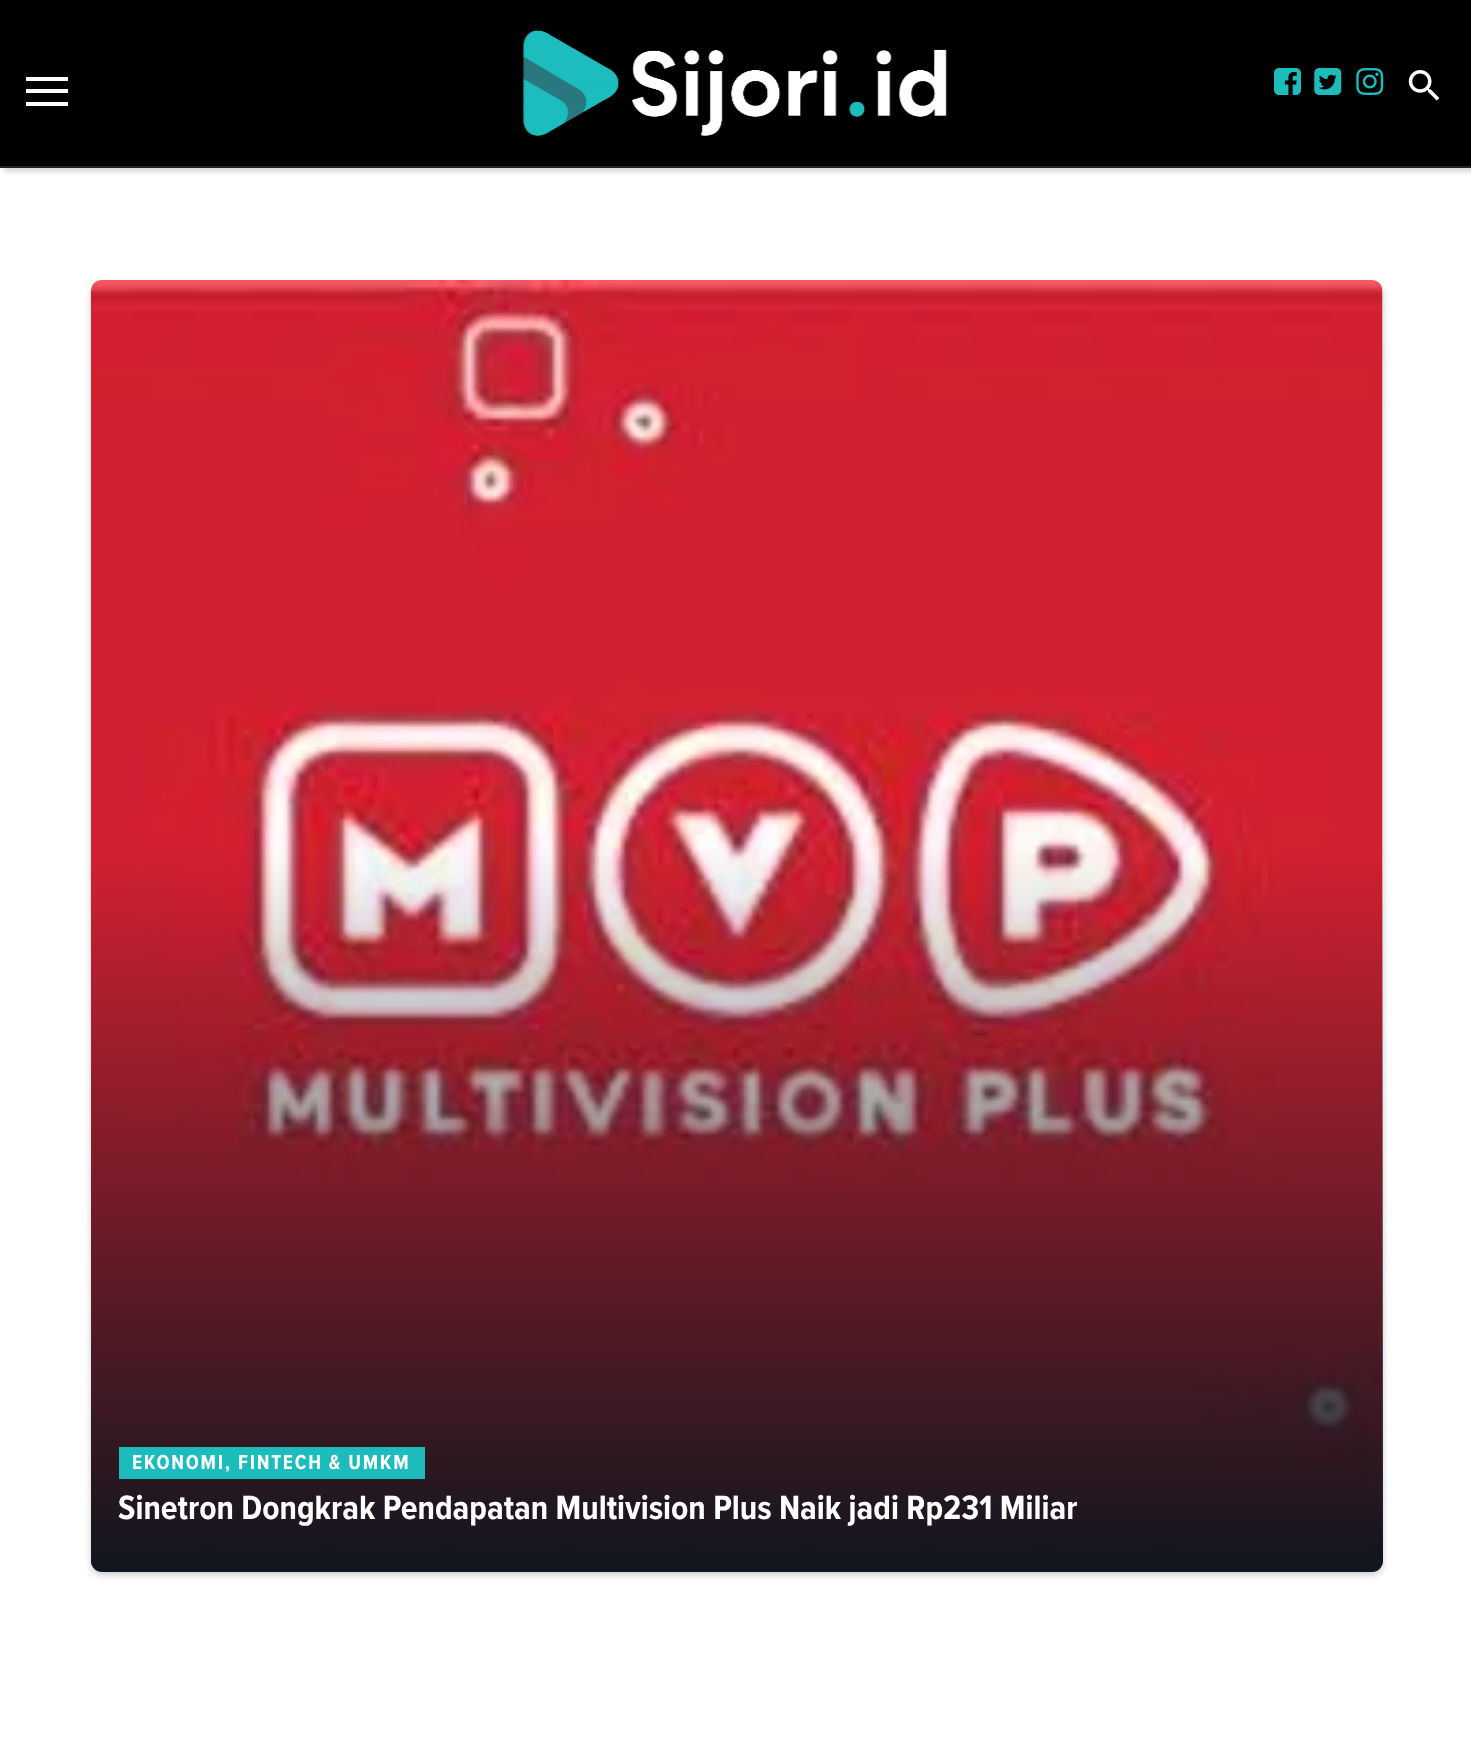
<!DOCTYPE html>
<meta charset="utf-8">
<style>body { margin: 0 } canvas { display: block }</style>
<canvas id="canvas" width="1471" height="1748"></canvas>
<script type="module">
  const canvas = document.getElementById("canvas");
  const g = canvas.getContext("2d");
  g.miterLimit = 4;
  g.fontKerning = "normal";
  function drawText(s, x, y, [font, color]) {
    g.font = font;
    g.fillStyle = color;
    g.fillText(s, x, y);
  }
  function fillBox(x, y, w, h, color) {
    g.fillStyle = color;
    g.fillRect(x, y, w, h);
  }
  async function drawPicture(src, x, y, w, h) {
    const img = new Image();
    img.src = src;
    await img.decode();
    g.drawImage(img, x, y, w, h);
  }
  let gradient;

  const s1 = ["bold 21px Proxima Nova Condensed", "#FFFFFF"];
  const s2 = ["bold 35px Proxima Nova Condensed", "#FFFFFF"];

  fillBox(0, 0, 1471, 1748, "#FFFFFF");
  g.fillStyle = "rgba(0, 0, 0, 0.15)";
  g.filter = "blur(2.5px)";
  g.beginPath();
  g.rect(4, 4, 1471, 168);
  g.fill();
  g.filter = "none";
  fillBox(0, 0, 1471, 166, "#000000");
  fillBox(0, 166, 1471, 2, "#212529");
  fillBox(26, 89, 42, 4, "#FFFFFF");
  fillBox(26, 77, 42, 4, "#FFFFFF");
  fillBox(26, 102, 42, 4, "#FFFFFF");
  await drawPicture("pic1.png", 523, 30, 424, 106);
  await drawPicture("pic2.png", 1274, 68, 27, 27);
  await drawPicture("pic3.png", 1314, 68, 28, 27);
  await drawPicture("pic4.png", 1356, 68, 28, 27);
  await drawPicture("pic5.png", 1408, 70, 32, 31);
  g.fillStyle = "rgba(0, 0, 0, 0.2)";
  g.filter = "blur(3.5px)";
  g.beginPath();
  g.roundRect(91, 284, 1292, 1291, 11);
  g.fill();
  g.filter = "none";
  await drawPicture("pic6.png", 91, 280, 1292, 1292);
  gradient = g.createLinearGradient(737, 280, 737, 1572);
  gradient.addColorStop(0.44, "rgba(15, 22, 30, 0)");
  gradient.addColorStop(1, "#0F161E");
  g.fillStyle = gradient;
  g.beginPath();
  g.roundRect(91, 280, 1292, 1292, 11);
  g.fill();
  fillBox(119, 1447, 306, 32, "#1DBCBC");
  g.letterSpacing = "1.75px";
  drawText("EKONOMI, FINTECH & UMKM", 132, 1469, s1);
  g.letterSpacing = "0px";
  drawText("Sinetron Dongkrak Pendapatan Multivision Plus Naik jadi Rp231 Miliar", 118, 1519, s2);
</script>
